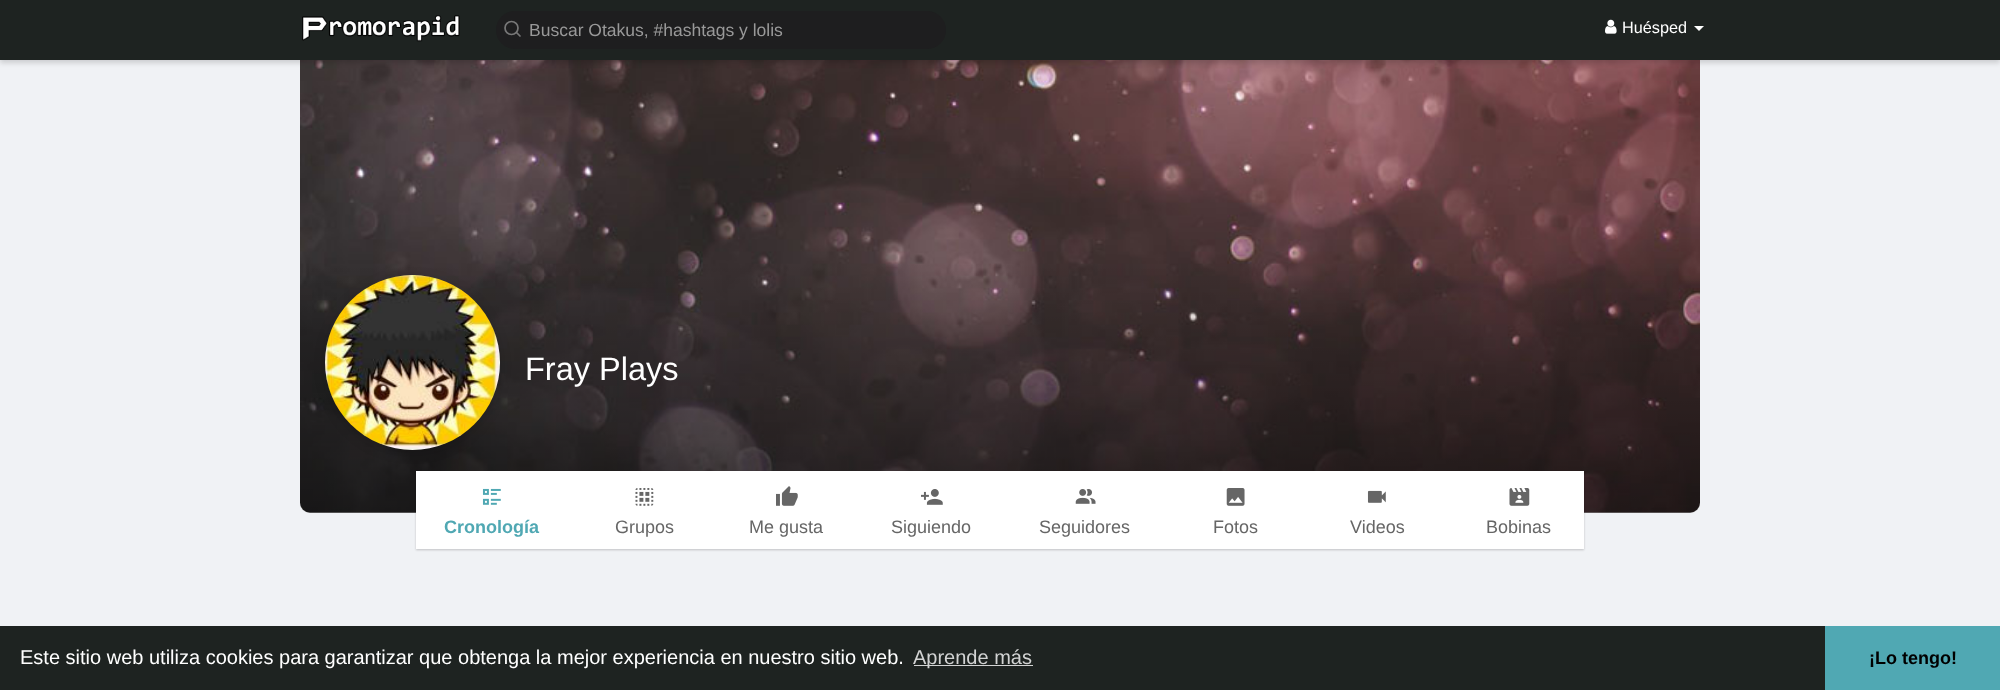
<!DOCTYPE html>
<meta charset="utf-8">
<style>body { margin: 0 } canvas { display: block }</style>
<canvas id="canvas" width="2000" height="690"></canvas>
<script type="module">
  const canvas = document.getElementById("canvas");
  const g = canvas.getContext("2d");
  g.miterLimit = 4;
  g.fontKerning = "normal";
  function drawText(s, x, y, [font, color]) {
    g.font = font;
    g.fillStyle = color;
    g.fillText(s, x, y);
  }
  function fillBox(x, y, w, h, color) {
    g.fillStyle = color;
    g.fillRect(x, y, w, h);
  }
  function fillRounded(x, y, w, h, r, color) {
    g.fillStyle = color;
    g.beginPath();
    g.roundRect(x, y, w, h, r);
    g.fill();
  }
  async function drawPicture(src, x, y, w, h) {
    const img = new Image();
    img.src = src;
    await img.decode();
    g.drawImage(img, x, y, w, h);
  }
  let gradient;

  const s1 = ["17.5px Liberation Sans", "#999999"];
  const s2 = ["16.25px Liberation Sans", "#FFFFFF"];
  const s3 = ["32.5px Liberation Sans", "#FFFFFF"];
  const s4 = ["bold 18px Liberation Sans", "#50A8B3"];
  const s5 = ["18px Liberation Sans", "#666666"];
  const s6 = ["20px Liberation Sans", "#FFFFFF"];
  const s7 = ["20px Liberation Sans", "#D2D3D3"];
  const s8 = ["bold 18px Liberation Sans", "#000000"];

  fillBox(0, 0, 2000, 690, "#F0F2F5");
  g.fillStyle = "#FFFFFF";
  g.beginPath();
  g.roundRect(300, 56, 1400, 457, [0, 0, 10, 10]);
  g.fill();
  await drawPicture("pic3.png", 300, 60, 1400, 453);
  g.fillStyle = "rgba(0, 0, 0, 0.15)";
  g.filter = "blur(2.5px)";
  g.beginPath();
  g.rect(0, 3, 2000, 60);
  g.fill();
  g.filter = "none";
  fillBox(0, 0, 2000, 60, "#1E2321");
  await drawPicture("pic1.png", 302, 15, 158, 27);
  fillRounded(496, 11, 450, 38, 19, "#1E1E1F");
  g.beginPath();
  g.arc(511.5, 28, 6.5, 0, Math.PI * 2);
  g.strokeStyle = "#787878";
  g.lineWidth = 1.7;
  g.stroke();
  g.beginPath();
  g.moveTo(520, 36);
  g.lineTo(516.5, 32.5);
  g.lineCap = "round";
  g.lineJoin = "round";
  g.stroke();
  drawText("Buscar Otakus, #hashtags y lolis", 529, 36, s1);
  await drawPicture("pic2.png", 1605, 19, 12, 15);
  drawText("Huésped", 1622, 33, s2);
  g.beginPath();
  g.moveTo(1694, 26);
  g.lineTo(1704, 26);
  g.lineTo(1699, 31);
  g.closePath();
  g.fill();
  gradient = g.createLinearGradient(1000, 262, 1000, 513);
  gradient.addColorStop(0, "rgba(0, 0, 0, 0)");
  gradient.addColorStop(1, "rgba(0, 0, 0, 0.45)");
  g.fillStyle = gradient;
  g.beginPath();
  g.roundRect(300, 263, 1400, 250, 10);
  g.fill();
  g.fillStyle = "rgba(0, 0, 0, 0.2)";
  g.filter = "blur(1px)";
  g.beginPath();
  g.rect(416, 473, 1168, 77);
  g.fill();
  g.filter = "none";
  fillBox(416, 471, 1168, 78, "#FFFFFF");
  g.fillStyle = "rgba(0, 0, 0, 0.15)";
  g.filter = "blur(6px)";
  g.beginPath();
  g.roundRect(325, 278, 175, 175, 87.5);
  g.fill();
  g.filter = "none";
  await drawPicture("pic4.png", 325, 275, 175, 175);
  drawText("Fray Plays", 525, 380, s3);
  await drawPicture("pic5.png", 482, 488, 19, 17);
  drawText("Cronología", 444, 533, s4);
  await drawPicture("pic6.png", 635, 488, 19, 18);
  drawText("Grupos", 615, 533, s5);
  await drawPicture("pic7.png", 776, 486, 22, 20);
  drawText("Me gusta", 749, 533, s5);
  await drawPicture("pic8.png", 921, 489, 22, 16);
  drawText("Siguiendo", 891, 533, s5);
  await drawPicture("pic9.png", 1075, 489, 21, 15);
  drawText("Seguidores", 1039, 533, s5);
  await drawPicture("pic10.png", 1226, 488, 19, 18);
  drawText("Fotos", 1213, 533, s5);
  await drawPicture("pic11.png", 1367, 490, 19, 13);
  drawText("Videos", 1350, 533, s5);
  await drawPicture("pic12.png", 1509, 488, 21, 18);
  drawText("Bobinas", 1486, 533, s5);
  fillBox(0, 626, 1825, 64, "#1E2321");
  drawText("Este sitio web utiliza cookies para garantizar que obtenga la mejor experiencia en nuestro sitio web.", 20, 664, s6);
  fillBox(914, 665, 119, 1, "#D2D3D3");
  drawText("Aprende más", 913, 664, s7);
  fillBox(1825, 626, 175, 64, "#50A8B3");
  drawText("¡Lo tengo!", 1869, 664, s8);
</script>
